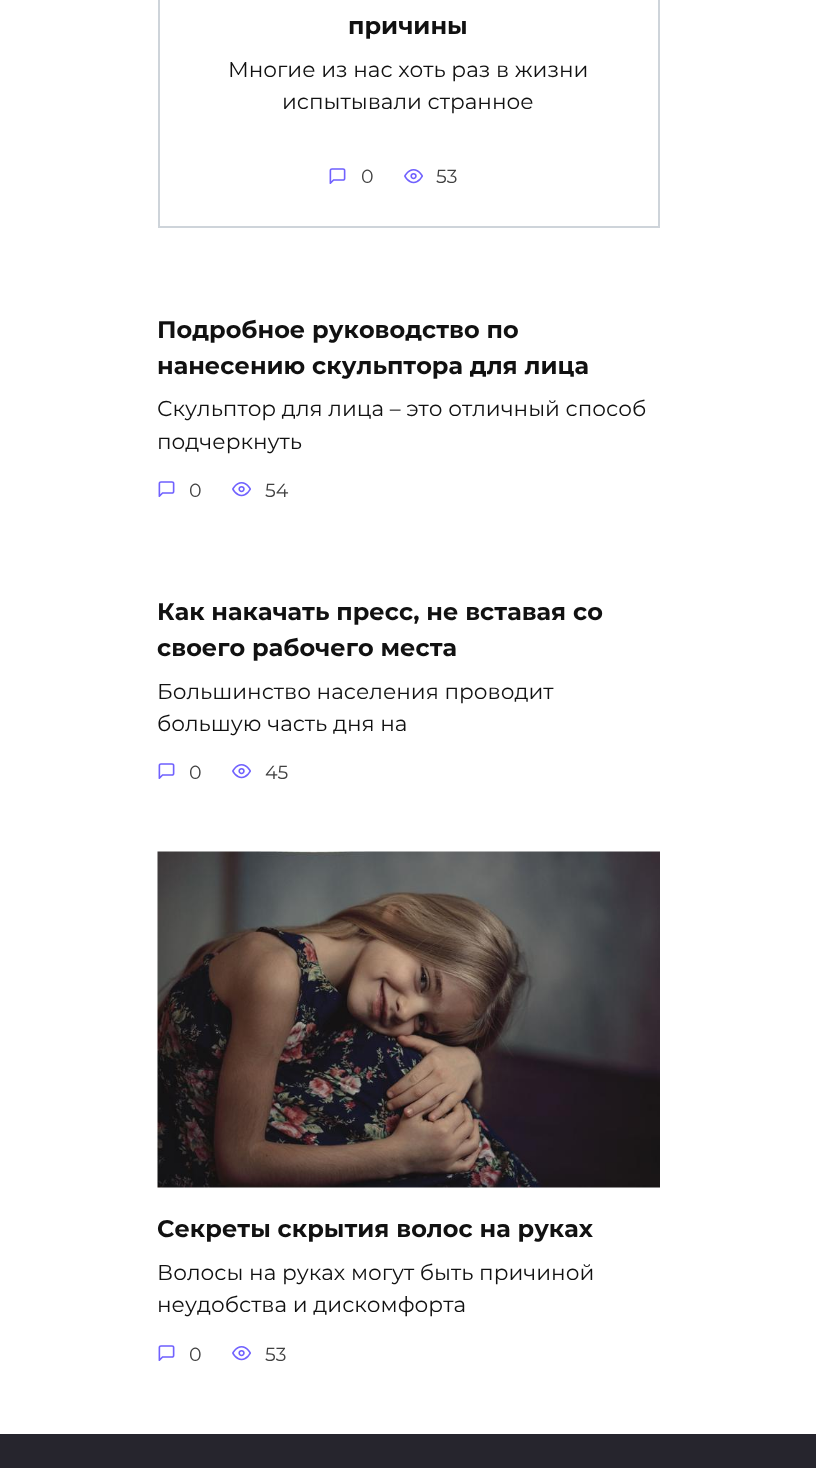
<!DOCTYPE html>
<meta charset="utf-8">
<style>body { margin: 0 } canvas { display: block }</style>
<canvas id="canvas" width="816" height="1468"></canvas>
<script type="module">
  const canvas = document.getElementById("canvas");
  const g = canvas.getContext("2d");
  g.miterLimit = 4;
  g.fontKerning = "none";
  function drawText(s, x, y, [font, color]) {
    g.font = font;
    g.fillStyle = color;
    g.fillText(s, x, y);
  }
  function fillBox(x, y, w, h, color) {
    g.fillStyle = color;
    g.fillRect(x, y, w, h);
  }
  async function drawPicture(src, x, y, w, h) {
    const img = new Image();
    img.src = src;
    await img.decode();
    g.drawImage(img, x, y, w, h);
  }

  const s1 = ["bold 24px Montserrat", "#111111"];
  const s2 = ["21.6px Montserrat", "#111111"];
  const s3 = ["19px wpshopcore", "#7162FE"];
  const s4 = ["19px Montserrat", "#414141"];

  fillBox(0, 0, 816, 1468, "#FFFFFF");
  g.strokeStyle = "#CED4DA";
  g.lineWidth = 2;
  g.strokeRect(159, -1, 500, 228);
  drawText("причины", 348, 34, s1);
  drawText("Многие из нас хоть раз в жизни", 228, 77, s2);
  drawText("испытывали странное", 282, 109, s2);
  drawText("💬", 328, 184, s3);
  drawText("0", 361, 183, s4);
  drawText("👀", 404, 184, s3);
  drawText("53", 436, 183, s4);
  drawText("Подробное руководство по", 157, 338, s1);
  drawText("нанесению скульптора для лица", 157, 374, s1);
  drawText("Скульптор для лица – это отличный способ", 157, 416, s2);
  drawText("подчеркнуть", 157, 449, s2);
  drawText("💬", 157, 497, s3);
  drawText("0", 189, 497, s4);
  drawText("👀", 232, 497, s3);
  drawText("54", 265, 497, s4);
  drawText("Как накачать пресс, не вставая со", 157, 620, s1);
  drawText("своего рабочего места", 157, 656, s1);
  drawText("Большинство населения проводит", 157, 699, s2);
  drawText("большую часть дня на", 157, 731, s2);
  drawText("💬", 157, 779, s3);
  drawText("0", 189, 779, s4);
  drawText("👀", 232, 779, s3);
  drawText("45", 265, 779, s4);
  await drawPicture("pic1.png", 157, 851, 503, 337);
  drawText("Секреты скрытия волос на руках", 157, 1237, s1);
  drawText("Волосы на руках могут быть причиной", 157, 1280, s2);
  drawText("неудобства и дискомфорта", 157, 1312, s2);
  drawText("💬", 157, 1361, s3);
  drawText("0", 189, 1361, s4);
  drawText("👀", 232, 1361, s3);
  drawText("53", 265, 1361, s4);
  fillBox(0, 1434, 816, 34, "#26252D");
</script>
